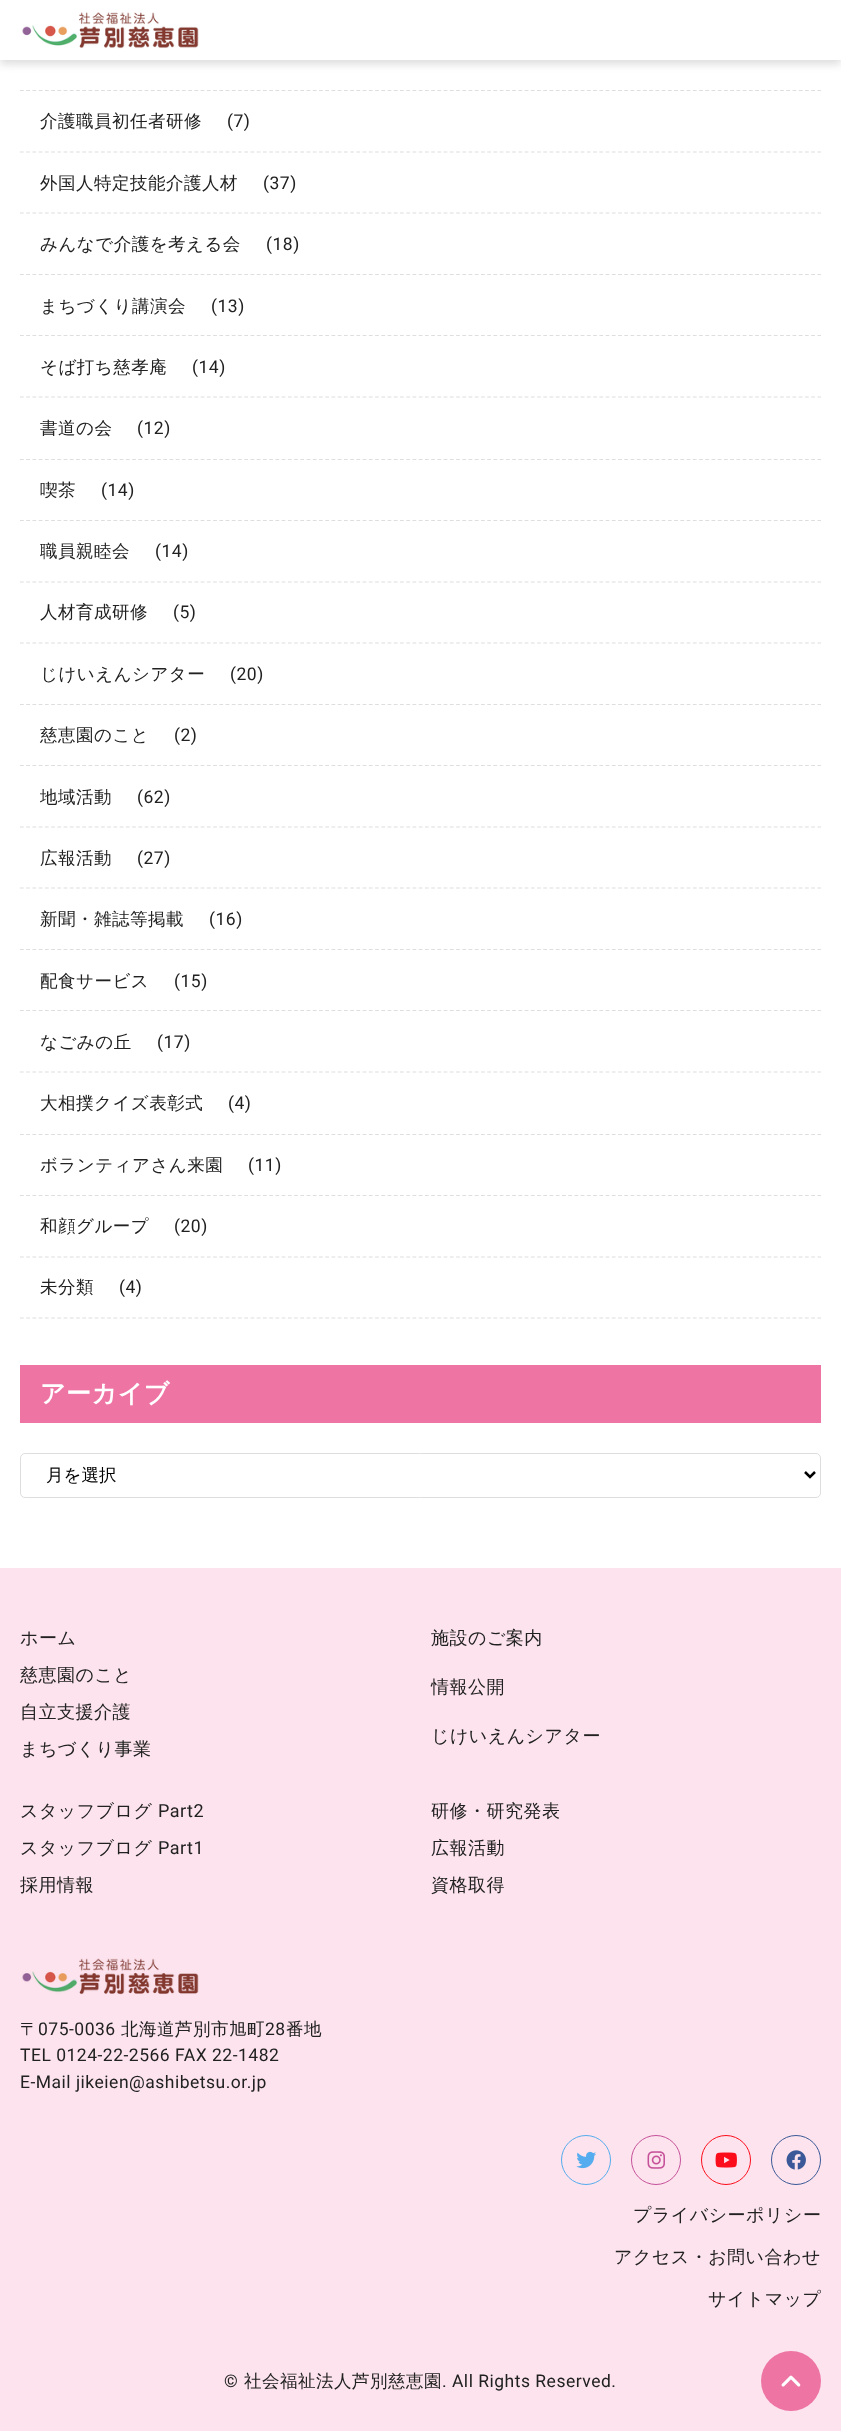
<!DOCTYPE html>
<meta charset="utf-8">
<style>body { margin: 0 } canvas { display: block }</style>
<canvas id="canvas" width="841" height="2431"></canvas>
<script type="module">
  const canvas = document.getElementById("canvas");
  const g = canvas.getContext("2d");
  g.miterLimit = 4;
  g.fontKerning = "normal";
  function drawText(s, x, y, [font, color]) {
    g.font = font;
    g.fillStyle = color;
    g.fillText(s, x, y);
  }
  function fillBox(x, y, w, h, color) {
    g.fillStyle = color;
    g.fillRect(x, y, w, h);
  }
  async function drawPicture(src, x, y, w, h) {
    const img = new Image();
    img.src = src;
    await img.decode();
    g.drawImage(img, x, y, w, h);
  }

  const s1 = ["500 17.5px WenQuanYi Zen Hei", "#212121"];
  const s2 = ["17.5px Roboto", "#212121"];
  const s3 = ["bold 25px WenQuanYi Zen Hei", "#FFFFFF"];
  const s4 = ["500 17.5px WenQuanYi Zen Hei", "#000000"];
  const s5 = ["500 18px WenQuanYi Zen Hei", "#212121"];
  const s6 = ["18px Roboto", "#212121"];

  fillBox(0, 0, 841, 2431, "#FFFFFF");
  g.fillStyle = "rgba(33, 33, 33, 0.16)";
  g.filter = "blur(4px)";
  g.beginPath();
  g.rect(0, 4, 841, 60);
  g.fill();
  g.filter = "none";
  fillBox(0, 0, 841, 60, "#FFFFFF");
  await drawPicture("pic1.png", 22, 12, 177, 37);
  g.beginPath();
  g.moveTo(20, 90.5);
  g.lineTo(821, 90.5);
  g.strokeStyle = "#DEDEDE";
  g.lineWidth = 1.2;
  g.setLineDash([3.75, 2.48]);
  g.stroke();
  g.beginPath();
  g.moveTo(20, 152);
  g.lineTo(821, 152);
  g.stroke();
  g.letterSpacing = "0.5px";
  drawText("介護職員初任者研修", 40, 127, s1);
  drawText("(7)", 227, 127, s2);
  g.beginPath();
  g.moveTo(20, 213);
  g.lineTo(821, 213);
  g.stroke();
  drawText("外国人特定技能介護人材", 40, 189, s1);
  drawText("(37)", 263, 189, s2);
  g.beginPath();
  g.moveTo(20, 274.5);
  g.lineTo(821, 274.5);
  g.stroke();
  drawText("みんなで介護を考える会", 40, 250, s1);
  drawText("(18)", 266, 250, s2);
  g.beginPath();
  g.moveTo(20, 335.5);
  g.lineTo(821, 335.5);
  g.stroke();
  drawText("まちづくり講演会", 40, 312, s1);
  drawText("(13)", 211, 312, s2);
  g.beginPath();
  g.moveTo(20, 397);
  g.lineTo(821, 397);
  g.stroke();
  drawText("そば打ち慈孝庵", 40, 373, s1);
  drawText("(14)", 192, 373, s2);
  g.beginPath();
  g.moveTo(20, 459.5);
  g.lineTo(821, 459.5);
  g.stroke();
  drawText("書道の会", 40, 434, s1);
  drawText("(12)", 137, 434, s2);
  g.beginPath();
  g.moveTo(20, 520.5);
  g.lineTo(821, 520.5);
  g.stroke();
  drawText("喫茶", 40, 496, s1);
  drawText("(14)", 101, 496, s2);
  g.beginPath();
  g.moveTo(20, 582);
  g.lineTo(821, 582);
  g.stroke();
  drawText("職員親睦会", 40, 557, s1);
  drawText("(14)", 155, 557, s2);
  g.beginPath();
  g.moveTo(20, 643);
  g.lineTo(821, 643);
  g.stroke();
  drawText("人材育成研修", 40, 618, s1);
  drawText("(5)", 173, 618, s2);
  g.beginPath();
  g.moveTo(20, 704.5);
  g.lineTo(821, 704.5);
  g.stroke();
  drawText("じけいえんシアター", 40, 680, s1);
  drawText("(20)", 230, 680, s2);
  g.beginPath();
  g.moveTo(20, 765.5);
  g.lineTo(821, 765.5);
  g.stroke();
  drawText("慈恵園のこと", 40, 741, s1);
  drawText("(2)", 174, 741, s2);
  g.beginPath();
  g.moveTo(20, 827);
  g.lineTo(821, 827);
  g.stroke();
  drawText("地域活動", 40, 803, s1);
  drawText("(62)", 137, 803, s2);
  g.beginPath();
  g.moveTo(20, 888);
  g.lineTo(821, 888);
  g.stroke();
  drawText("広報活動", 40, 864, s1);
  drawText("(27)", 137, 864, s2);
  g.beginPath();
  g.moveTo(20, 949.5);
  g.lineTo(821, 949.5);
  g.stroke();
  drawText("新聞・雑誌等掲載", 40, 925, s1);
  drawText("(16)", 209, 925, s2);
  g.beginPath();
  g.moveTo(20, 1010.5);
  g.lineTo(821, 1010.5);
  g.stroke();
  drawText("配食サービス", 40, 987, s1);
  drawText("(15)", 174, 987, s2);
  g.beginPath();
  g.moveTo(20, 1072);
  g.lineTo(821, 1072);
  g.stroke();
  drawText("なごみの丘", 40, 1048, s1);
  drawText("(17)", 157, 1048, s2);
  g.beginPath();
  g.moveTo(20, 1134.5);
  g.lineTo(821, 1134.5);
  g.stroke();
  drawText("大相撲クイズ表彰式", 40, 1109, s1);
  drawText("(4)", 228, 1109, s2);
  g.beginPath();
  g.moveTo(20, 1195.5);
  g.lineTo(821, 1195.5);
  g.stroke();
  drawText("ボランティアさん来園", 40, 1171, s1);
  drawText("(11)", 248, 1171, s2);
  g.beginPath();
  g.moveTo(20, 1257);
  g.lineTo(821, 1257);
  g.stroke();
  drawText("和顔グループ", 40, 1232, s1);
  drawText("(20)", 174, 1232, s2);
  g.beginPath();
  g.moveTo(20, 1318);
  g.lineTo(821, 1318);
  g.stroke();
  drawText("未分類", 40, 1293, s1);
  drawText("(4)", 119, 1293, s2);
  fillBox(20, 1365, 801, 58, "#EE74A4");
  drawText("アーカイブ", 40, 1402, s3);
  g.beginPath();
  g.roundRect(20.5, 1453.5, 800, 44, 4.5);
  g.lineWidth = 1;
  g.setLineDash([]);
  g.stroke();
  g.beginPath();
  g.moveTo(805, 1472);
  g.lineTo(810, 1477);
  g.lineTo(815, 1472);
  g.strokeStyle = "#000000";
  g.lineWidth = 2.5;
  g.stroke();
  g.letterSpacing = "0px";
  drawText("月を選択", 46, 1481, s4);
  fillBox(0, 1568, 841, 863, "#FCE3ED");
  g.letterSpacing = "0.5px";
  drawText("ホーム", 20, 1644, s5);
  drawText("慈恵園のこと", 20, 1681, s5);
  drawText("自立支援介護", 20, 1718, s5);
  drawText("まちづくり事業", 20, 1755, s5);
  drawText("施設のご案内", 431, 1644, s5);
  drawText("情報公開", 431, 1693, s5);
  drawText("じけいえんシアター", 431, 1742, s5);
  drawText("スタッフブログ", 20, 1817, s5);
  drawText("Part2", 158, 1817, s6);
  drawText("スタッフブログ", 20, 1854, s5);
  drawText("Part1", 158, 1854, s6);
  drawText("採用情報", 20, 1891, s5);
  drawText("研修・研究発表", 431, 1817, s5);
  drawText("広報活動", 431, 1854, s5);
  drawText("資格取得", 431, 1891, s5);
  await drawPicture("pic2.png", 22, 1958, 177, 37);
  drawText("〒", 20, 2035, s1);
  drawText("075-0036", 38, 2035, s2);
  drawText("北海道芦別市旭町", 121, 2035, s1);
  drawText("28", 265, 2035, s2);
  drawText("番地", 286, 2035, s1);
  drawText("TEL 0124-22-2566 FAX 22-1482", 20, 2061, s2);
  drawText("E-Mail jikeien@ashibetsu.or.jp", 20, 2088, s2);
  g.beginPath();
  g.arc(586, 2160, 24.5, 0, Math.PI * 2);
  g.strokeStyle = "#55ACEE";
  g.lineWidth = 1;
  g.stroke();
  await drawPicture("pic3.png", 576, 2151, 20, 18);
  g.beginPath();
  g.arc(656, 2160, 24.5, 0, Math.PI * 2);
  g.strokeStyle = "#C6529A";
  g.stroke();
  await drawPicture("pic4.png", 647, 2151, 18, 18);
  g.beginPath();
  g.arc(726, 2160, 24.5, 0, Math.PI * 2);
  g.strokeStyle = "#FC0D1C";
  g.stroke();
  await drawPicture("pic5.png", 715, 2152, 22, 16);
  g.beginPath();
  g.arc(796, 2160, 24.5, 0, Math.PI * 2);
  g.strokeStyle = "#3B5998";
  g.stroke();
  await drawPicture("pic6.png", 786, 2150, 20, 20);
  drawText("プライバシーポリシー", 633, 2221, s5);
  drawText("アクセス・お問い合わせ", 614, 2263, s5);
  drawText("サイトマップ", 708, 2305, s5);
  drawText("©", 224, 2387, s2);
  drawText("社会福祉法人芦別慈恵園", 244, 2387, s1);
  drawText(". All Rights Reserved.", 442, 2387, s2);
  g.fillStyle = "#EE74A4";
  g.beginPath();
  g.arc(791, 2381, 30, 0, Math.PI * 2);
  g.fill();
  await drawPicture("pic7.png", 781, 2375, 20, 12);
</script>
